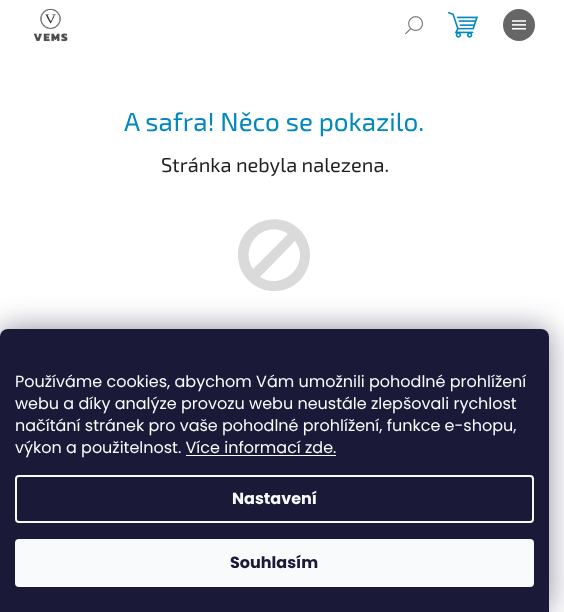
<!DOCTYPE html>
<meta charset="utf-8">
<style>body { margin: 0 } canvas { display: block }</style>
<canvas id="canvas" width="564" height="612"></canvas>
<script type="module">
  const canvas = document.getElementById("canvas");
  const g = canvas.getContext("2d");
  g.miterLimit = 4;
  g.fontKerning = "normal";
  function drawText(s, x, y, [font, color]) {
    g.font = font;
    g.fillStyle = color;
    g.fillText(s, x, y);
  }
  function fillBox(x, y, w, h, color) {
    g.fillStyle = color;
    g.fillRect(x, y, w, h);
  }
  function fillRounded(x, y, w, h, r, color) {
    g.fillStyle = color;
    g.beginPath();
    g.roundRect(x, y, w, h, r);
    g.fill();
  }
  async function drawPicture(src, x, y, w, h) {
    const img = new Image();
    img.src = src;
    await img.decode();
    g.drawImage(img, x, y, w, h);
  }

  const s1 = ["26px 'Exo 2'", "#0088BF"];
  const s2 = ["20px 'Exo 2'", "#1F1F1F"];
  const s3 = ["16px Poppins", "#F8FAFB"];
  const s4 = ["bold 16px Poppins", "#F8FAFB"];
  const s5 = ["bold 16px Poppins", "#1A1937"];

  fillBox(0, 0, 564, 612, "#FFFFFF");
  await drawPicture("pic1.png", 33, 8, 35, 34);
  await drawPicture("pic2.png", 448, 12, 30, 26);
  await drawPicture("pic3.png", 405, 16, 18, 19);
  g.fillStyle = "#666666";
  g.beginPath();
  g.arc(519, 25, 16, 0, Math.PI * 2);
  g.fill();
  await drawPicture("pic4.png", 512, 20, 14, 10);
  drawText("A safra! Něco se pokazilo.", 124, 131, s1);
  drawText("Stránka nebyla nalezena.", 161, 172, s2);
  g.fillStyle = "#DADADA";
  g.beginPath();
  g.moveTo(300, 255);
  g.bezierCurveTo(300, 250, 298, 245, 295, 241);
  g.lineTo(260, 277);
  g.bezierCurveTo(277, 288, 300, 275, 300, 255);
  g.closePath();
  g.moveTo(253, 269);
  g.lineTo(288, 234);
  g.bezierCurveTo(265, 218, 238, 246, 253, 269);
  g.closePath();
  g.moveTo(310, 255);
  g.bezierCurveTo(310, 262, 308, 269, 304, 275);
  g.bezierCurveTo(284, 305, 238, 290, 238, 255);
  g.bezierCurveTo(238, 220, 284, 206, 304, 235);
  g.bezierCurveTo(308, 241, 310, 248, 310, 255);
  g.closePath();
  g.fill();
  g.fillStyle = "rgba(27, 25, 57, 0.5)";
  g.filter = "blur(15px)";
  g.beginPath();
  g.roundRect(0, 329, 549, 283, 8);
  g.fill();
  g.filter = "none";
  g.fillStyle = "#1A1937";
  g.beginPath();
  g.roundRect(0, 329, 549, 283, [8, 8, 0, 0]);
  g.fill();
  drawText("Používáme cookies, abychom Vám umožnili pohodlné prohlížení", 15, 387, s3);
  drawText("webu a díky analýze provozu webu neustále zlepšovali rychlost", 15, 409, s3);
  drawText("načítání stránek pro vaše pohodlné prohlížení, funkce e-shopu,", 15, 431, s3);
  drawText("výkon a použitelnost. Více informací zde.", 15, 453, s3);
  fillBox(186, 455, 150, 1, "#F8FAFB");
  g.beginPath();
  g.roundRect(16, 476, 517, 46, 3);
  g.strokeStyle = "#F8FAFB";
  g.lineWidth = 2;
  g.stroke();
  drawText("Nastavení", 232, 504, s4);
  fillRounded(15, 539, 519, 48, 4, "#F8FAFB");
  drawText("Souhlasím", 230, 568, s5);
</script>
